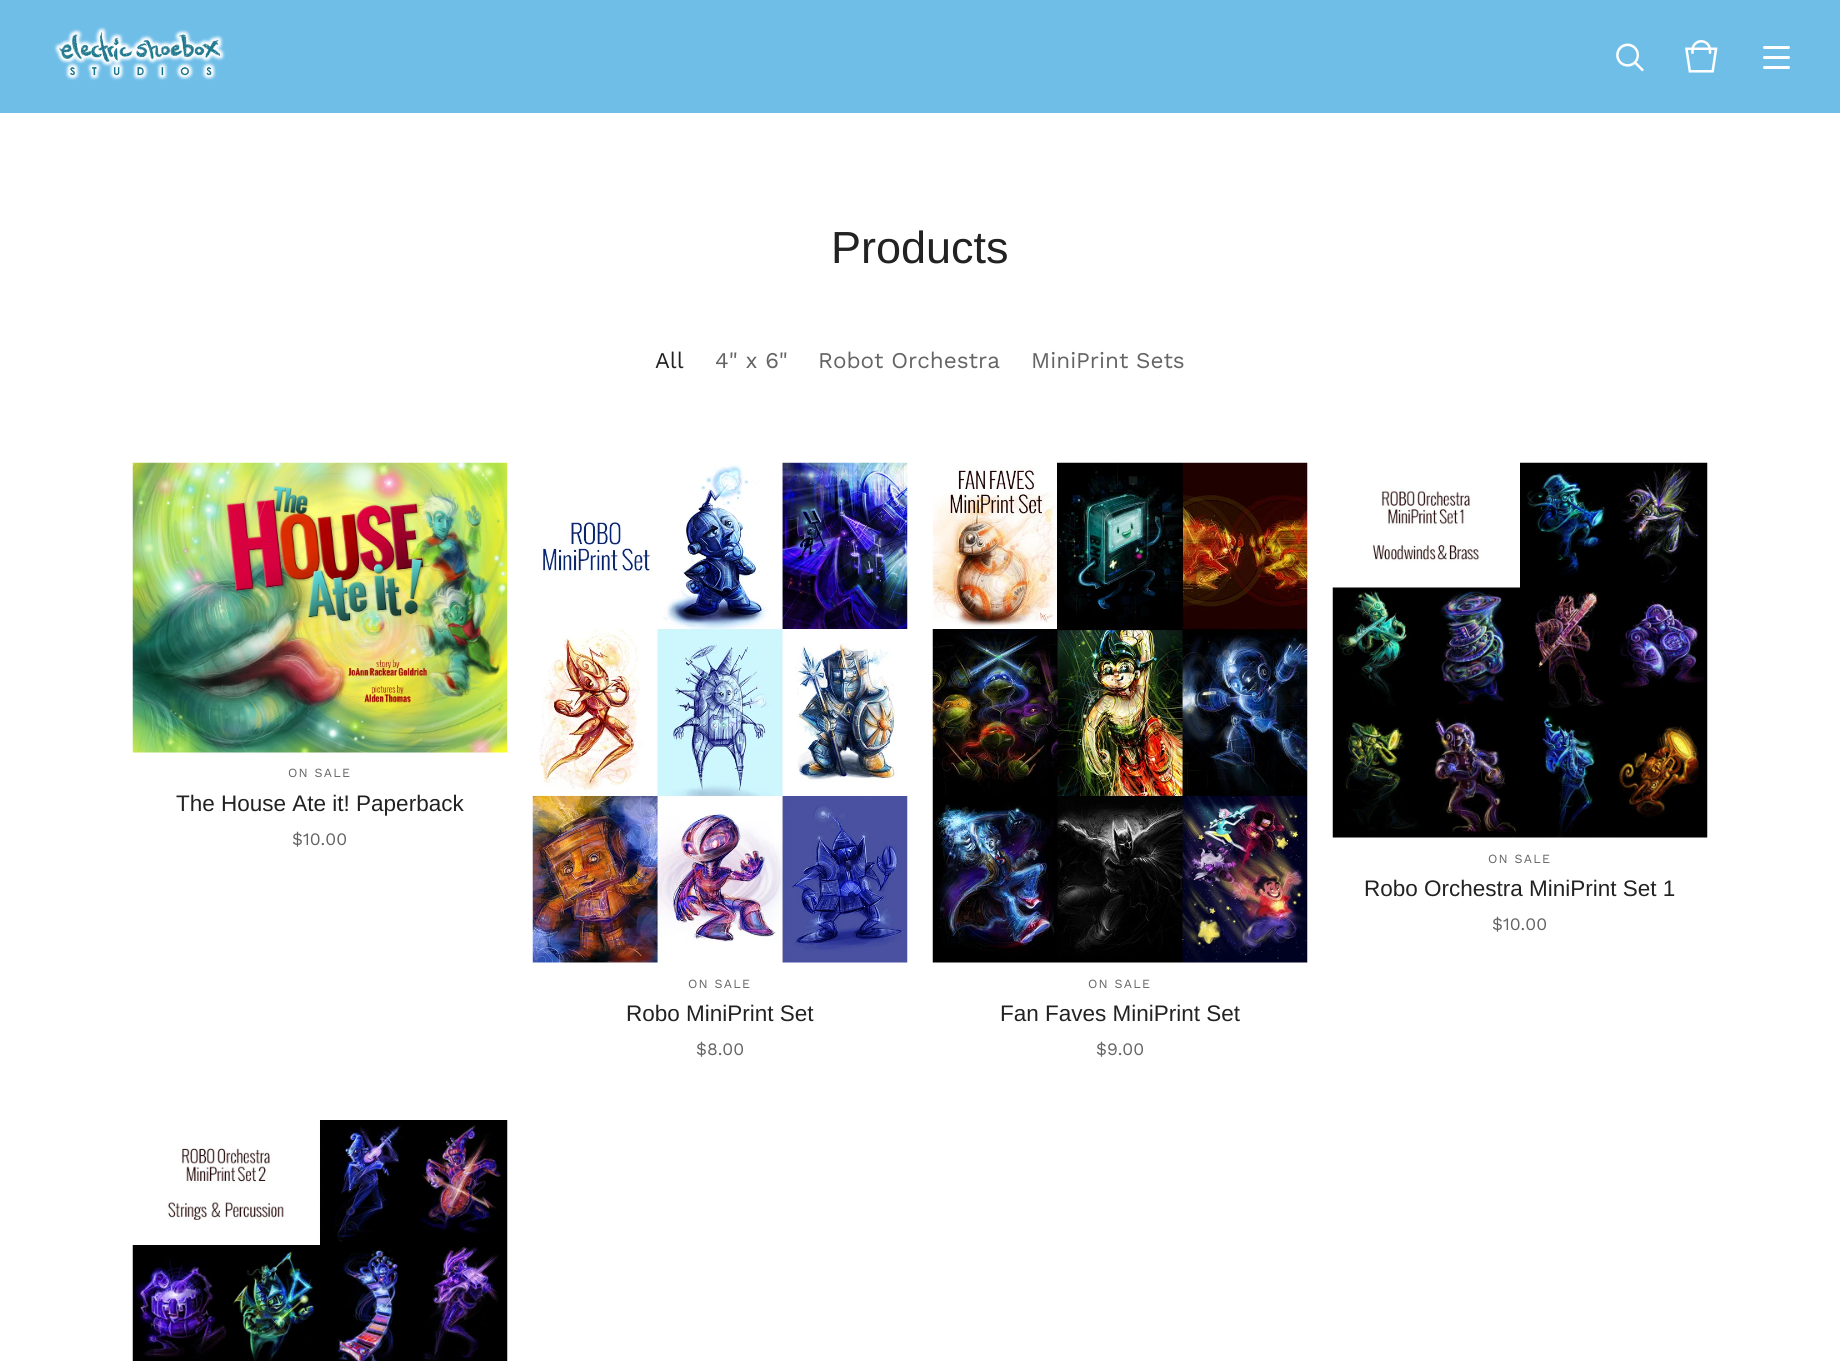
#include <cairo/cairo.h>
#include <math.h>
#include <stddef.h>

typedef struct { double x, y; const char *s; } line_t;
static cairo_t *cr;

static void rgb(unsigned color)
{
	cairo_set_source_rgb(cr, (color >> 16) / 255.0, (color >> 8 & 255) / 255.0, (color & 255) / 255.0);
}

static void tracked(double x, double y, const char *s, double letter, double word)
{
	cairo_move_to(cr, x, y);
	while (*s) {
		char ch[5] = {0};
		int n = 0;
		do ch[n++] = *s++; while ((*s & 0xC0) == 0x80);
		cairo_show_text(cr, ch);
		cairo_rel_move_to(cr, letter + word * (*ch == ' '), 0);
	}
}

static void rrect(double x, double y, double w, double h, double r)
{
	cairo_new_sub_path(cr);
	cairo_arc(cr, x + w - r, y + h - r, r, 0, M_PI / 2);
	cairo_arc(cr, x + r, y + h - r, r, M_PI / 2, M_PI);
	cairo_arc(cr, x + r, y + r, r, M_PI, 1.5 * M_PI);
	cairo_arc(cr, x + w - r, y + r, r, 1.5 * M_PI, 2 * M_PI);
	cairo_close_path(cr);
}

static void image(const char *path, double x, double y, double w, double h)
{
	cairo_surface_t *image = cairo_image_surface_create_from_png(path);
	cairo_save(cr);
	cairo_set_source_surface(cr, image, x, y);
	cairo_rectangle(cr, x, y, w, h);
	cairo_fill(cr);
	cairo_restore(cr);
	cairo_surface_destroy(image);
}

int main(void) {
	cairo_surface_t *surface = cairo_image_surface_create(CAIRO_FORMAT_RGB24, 1840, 1361);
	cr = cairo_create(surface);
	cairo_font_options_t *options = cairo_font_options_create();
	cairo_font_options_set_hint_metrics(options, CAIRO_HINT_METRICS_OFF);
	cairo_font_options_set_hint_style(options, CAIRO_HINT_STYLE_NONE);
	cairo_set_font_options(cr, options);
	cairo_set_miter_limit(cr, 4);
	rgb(0xffffff);
	cairo_paint(cr);
	rgb(0x6fbee8);
	cairo_rectangle(cr, 0, 0, 1840, 113);
	cairo_fill(cr);
	image("img/1.png", 54, 27, 172, 54);
	image("img/2.png", 1616, 43, 28, 29);
	image("img/3.png", 1685, 40, 33, 33);
	rgb(0xffffff);
	rrect(1763, 46, 27, 3, 1.5);
	cairo_fill(cr);
	rrect(1763, 56, 27, 3, 1.5);
	cairo_fill(cr);
	rrect(1763, 66, 27, 3, 1.5);
	cairo_fill(cr);
	image("img/4.png", 132, 462, 376, 291);
	image("img/5.png", 1332, 462, 376, 376);
	image("img/6.png", 532, 462, 376, 501);
	image("img/7.png", 932, 462, 376, 501);
	image("img/8.png", 132, 1120, 376, 241);
	cairo_select_font_face(cr, "Liberation Sans", CAIRO_FONT_SLANT_NORMAL, CAIRO_FONT_WEIGHT_NORMAL);
	cairo_set_font_size(cr, 45);
	rgb(0x222222);
	cairo_move_to(cr, 831, 263);
	cairo_show_text(cr, "Products");
	cairo_select_font_face(cr, "Work Sans", CAIRO_FONT_SLANT_NORMAL, CAIRO_FONT_WEIGHT_NORMAL);
	cairo_set_font_size(cr, 22.5);
	cairo_move_to(cr, 655, 368);
	cairo_show_text(cr, "All");
	rgb(0x646464);
	{
		static const line_t items[] = {
			{715, 368, "4\" x 6\""},
			{818, 368, "Robot Orchestra"},
			{1031, 368, "MiniPrint Sets"},
		};
		for (size_t i = 0; i < sizeof items / sizeof *items; i++) {
			cairo_move_to(cr, items[i].x, items[i].y);
			cairo_show_text(cr, items[i].s);
		}
	}
	cairo_set_font_size(cr, 12.5);
	tracked(288, 777, "ON SALE", 1.25, 0);
	cairo_select_font_face(cr, "Liberation Sans", CAIRO_FONT_SLANT_NORMAL, CAIRO_FONT_WEIGHT_NORMAL);
	cairo_set_font_size(cr, 22.5);
	rgb(0x222222);
	cairo_move_to(cr, 176, 811);
	cairo_show_text(cr, "The House Ate it! Paperback");
	cairo_select_font_face(cr, "Work Sans", CAIRO_FONT_SLANT_NORMAL, CAIRO_FONT_WEIGHT_NORMAL);
	cairo_set_font_size(cr, 17.5);
	rgb(0x646464);
	cairo_move_to(cr, 292, 845);
	cairo_show_text(cr, "$10.00");
	cairo_set_font_size(cr, 12.5);
	tracked(1488, 863, "ON SALE", 1.25, 0);
	cairo_select_font_face(cr, "Liberation Sans", CAIRO_FONT_SLANT_NORMAL, CAIRO_FONT_WEIGHT_NORMAL);
	cairo_set_font_size(cr, 22.5);
	rgb(0x222222);
	cairo_move_to(cr, 1364, 896);
	cairo_show_text(cr, "Robo Orchestra MiniPrint Set 1");
	cairo_select_font_face(cr, "Work Sans", CAIRO_FONT_SLANT_NORMAL, CAIRO_FONT_WEIGHT_NORMAL);
	cairo_set_font_size(cr, 17.5);
	rgb(0x646464);
	cairo_move_to(cr, 1492, 930);
	cairo_show_text(cr, "$10.00");
	cairo_set_font_size(cr, 12.5);
	tracked(688, 988, "ON SALE", 1.25, 0);
	cairo_select_font_face(cr, "Liberation Sans", CAIRO_FONT_SLANT_NORMAL, CAIRO_FONT_WEIGHT_NORMAL);
	cairo_set_font_size(cr, 22.5);
	rgb(0x222222);
	cairo_move_to(cr, 626, 1021);
	cairo_show_text(cr, "Robo MiniPrint Set");
	cairo_select_font_face(cr, "Work Sans", CAIRO_FONT_SLANT_NORMAL, CAIRO_FONT_WEIGHT_NORMAL);
	cairo_set_font_size(cr, 17.5);
	rgb(0x646464);
	cairo_move_to(cr, 696, 1055);
	cairo_show_text(cr, "$8.00");
	cairo_set_font_size(cr, 12.5);
	tracked(1088, 988, "ON SALE", 1.25, 0);
	cairo_select_font_face(cr, "Liberation Sans", CAIRO_FONT_SLANT_NORMAL, CAIRO_FONT_WEIGHT_NORMAL);
	cairo_set_font_size(cr, 22.5);
	rgb(0x222222);
	cairo_move_to(cr, 1000, 1021);
	cairo_show_text(cr, "Fan Faves MiniPrint Set");
	cairo_select_font_face(cr, "Work Sans", CAIRO_FONT_SLANT_NORMAL, CAIRO_FONT_WEIGHT_NORMAL);
	cairo_set_font_size(cr, 17.5);
	rgb(0x646464);
	cairo_move_to(cr, 1096, 1055);
	cairo_show_text(cr, "$9.00");
	cairo_surface_write_to_png(surface, "page.png");
	cairo_font_options_destroy(options);
	cairo_destroy(cr);
	cairo_surface_destroy(surface);
	return 0;
}
